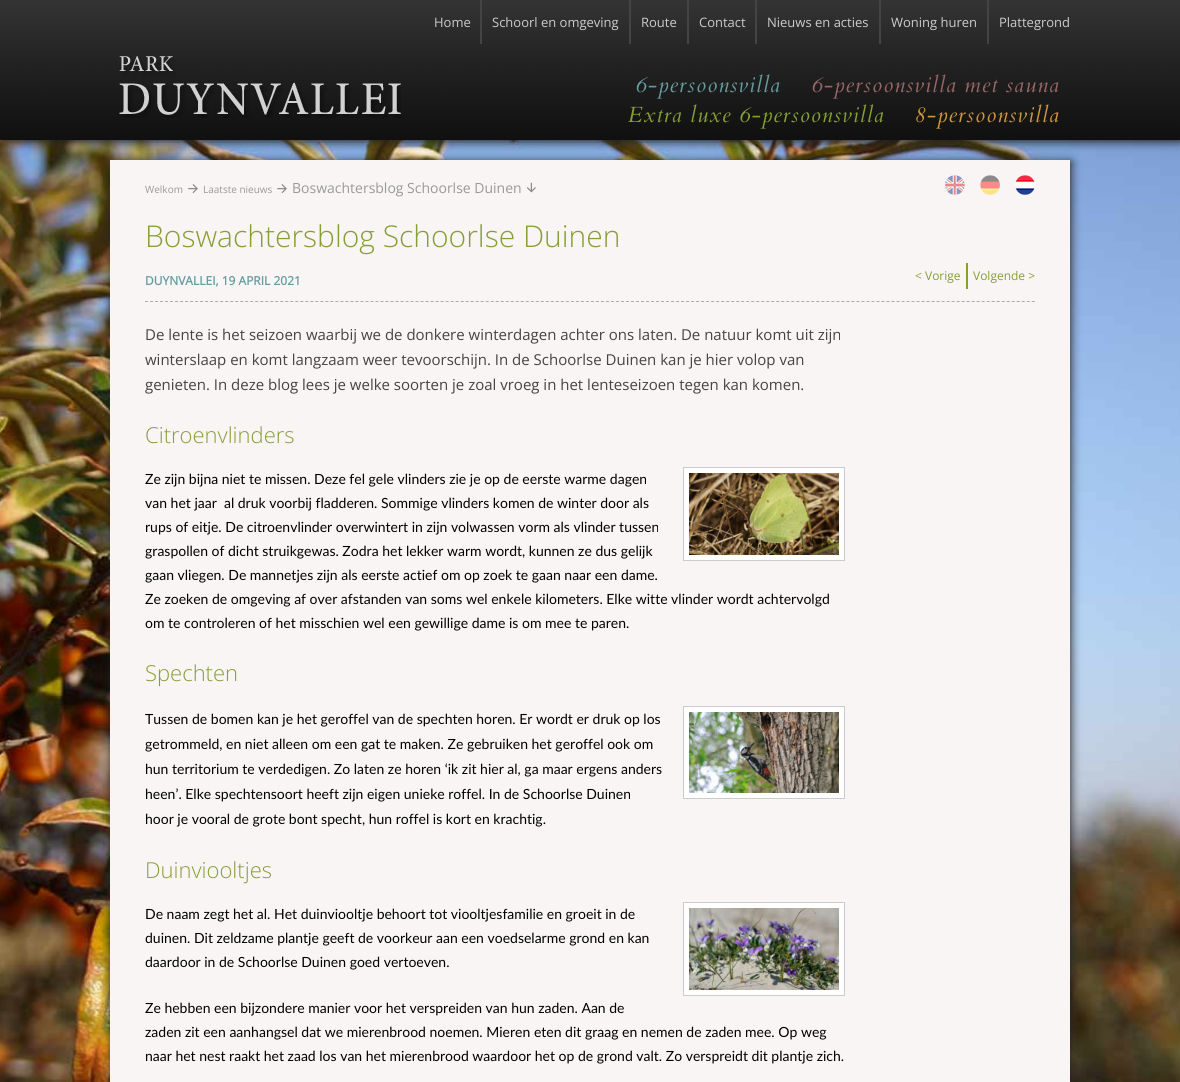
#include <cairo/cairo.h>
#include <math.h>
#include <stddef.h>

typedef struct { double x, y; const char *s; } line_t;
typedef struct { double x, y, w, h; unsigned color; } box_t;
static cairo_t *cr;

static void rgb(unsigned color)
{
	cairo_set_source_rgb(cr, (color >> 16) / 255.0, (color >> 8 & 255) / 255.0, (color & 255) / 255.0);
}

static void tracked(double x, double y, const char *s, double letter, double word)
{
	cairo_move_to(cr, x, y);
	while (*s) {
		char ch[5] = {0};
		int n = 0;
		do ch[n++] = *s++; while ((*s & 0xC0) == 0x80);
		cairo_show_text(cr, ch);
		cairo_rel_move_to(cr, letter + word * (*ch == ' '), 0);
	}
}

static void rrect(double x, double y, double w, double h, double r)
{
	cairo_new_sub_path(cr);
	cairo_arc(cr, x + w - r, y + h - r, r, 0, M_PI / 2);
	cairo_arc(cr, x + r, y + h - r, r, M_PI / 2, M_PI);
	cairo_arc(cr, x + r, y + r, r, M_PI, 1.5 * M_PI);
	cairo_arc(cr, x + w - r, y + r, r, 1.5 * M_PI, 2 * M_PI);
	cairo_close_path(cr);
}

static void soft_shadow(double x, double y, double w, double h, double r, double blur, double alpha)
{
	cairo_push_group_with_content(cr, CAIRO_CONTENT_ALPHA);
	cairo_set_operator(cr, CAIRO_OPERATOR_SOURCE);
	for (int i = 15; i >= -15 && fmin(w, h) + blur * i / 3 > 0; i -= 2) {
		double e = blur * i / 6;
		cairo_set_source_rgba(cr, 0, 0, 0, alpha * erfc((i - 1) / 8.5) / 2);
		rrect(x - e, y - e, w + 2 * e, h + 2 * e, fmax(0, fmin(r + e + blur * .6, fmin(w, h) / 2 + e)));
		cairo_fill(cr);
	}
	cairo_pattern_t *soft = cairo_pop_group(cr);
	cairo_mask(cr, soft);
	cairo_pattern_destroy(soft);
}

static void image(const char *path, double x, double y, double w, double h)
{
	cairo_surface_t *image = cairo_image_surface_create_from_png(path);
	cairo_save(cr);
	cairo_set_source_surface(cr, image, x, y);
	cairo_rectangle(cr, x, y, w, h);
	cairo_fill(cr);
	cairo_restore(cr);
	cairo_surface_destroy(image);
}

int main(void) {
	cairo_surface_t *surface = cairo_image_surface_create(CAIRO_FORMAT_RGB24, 1180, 1082);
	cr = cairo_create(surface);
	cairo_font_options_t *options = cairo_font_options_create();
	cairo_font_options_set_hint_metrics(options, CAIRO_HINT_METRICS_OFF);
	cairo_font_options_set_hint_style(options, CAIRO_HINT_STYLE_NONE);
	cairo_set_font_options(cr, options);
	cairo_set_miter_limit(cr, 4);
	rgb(0xffffff);
	cairo_paint(cr);
	image("img/1.png", 0, 140, 1180, 942);
	rgb(0x222222);
	soft_shadow(1, 2, 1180, 140, 0, 5, 1);
	image("img/2.png", 0, 0, 1180, 140);
	{
		static const box_t items[] = {
			{480, 0, 2, 44, 0x444444},
			{629, 0, 2, 44, 0x444444},
			{687, 0, 2, 44, 0x444444},
			{755, 0, 2, 44, 0x444444},
			{879, 0, 2, 44, 0x444444},
			{987, 0, 2, 44, 0x444444},
		};
		for (size_t i = 0; i < sizeof items / sizeof *items; i++) {
			rgb(items[i].color);
			cairo_rectangle(cr, items[i].x, items[i].y, items[i].w, items[i].h);
			cairo_fill(cr);
		}
	}
	image("img/3.png", 119, 56, 282, 62);
	rgb(0x222222);
	soft_shadow(111, 162, 960, 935, 0, 5, 1);
	rgb(0xf8f5f4);
	cairo_rectangle(cr, 110, 160, 960, 922);
	cairo_fill(cr);
	image("img/4.png", 188, 184, 10, 9);
	image("img/4.png", 277, 184, 10, 9);
	image("img/5.png", 526, 182, 10, 11);
	image("img/6.png", 945, 175, 20, 20);
	image("img/7.png", 980, 175, 20, 20);
	image("img/8.png", 1015, 175, 20, 20);
	rgb(0x879f36);
	cairo_rectangle(cr, 966, 263, 2, 26);
	cairo_fill(cr);
	cairo_new_path(cr);
	cairo_move_to(cr, 145, 301.5);
	cairo_line_to(cr, 1035, 301.5);
	rgb(0xaaaaaa);
	cairo_set_line_width(cr, 1);
	cairo_set_dash(cr, (double[]){3, 2.01}, 2, 0);
	cairo_stroke(cr);
	rgb(0xffffff);
	cairo_rectangle(cr, 683.5, 467.5, 161, 93);
	cairo_fill_preserve(cr);
	rgb(0xcccccc);
	cairo_set_dash(cr, NULL, 0, 0);
	cairo_stroke(cr);
	image("img/9.png", 689, 473, 150, 82);
	rgb(0xffffff);
	cairo_rectangle(cr, 683.5, 706.5, 161, 92);
	cairo_fill_preserve(cr);
	rgb(0xcccccc);
	cairo_stroke(cr);
	image("img/10.png", 689, 712, 150, 81);
	rgb(0xffffff);
	cairo_rectangle(cr, 683.5, 902.5, 161, 93);
	cairo_fill_preserve(cr);
	rgb(0xcccccc);
	cairo_stroke(cr);
	image("img/11.png", 689, 908, 150, 82);
	cairo_select_font_face(cr, "Open Sans", CAIRO_FONT_SLANT_NORMAL, CAIRO_FONT_WEIGHT_NORMAL);
	cairo_set_font_size(cr, 13);
	{
		static const line_t items[] = {
			{434, 27, "Home"},
			{492, 27, "Schoorl en omgeving"},
			{641, 27, "Route"},
			{699, 27, "Contact"},
			{767, 27, "Nieuws en acties"},
			{891, 27, "Woning huren"},
			{999, 27, "Plattegrond"},
		};
		for (size_t i = 0; i < sizeof items / sizeof *items; i++) {
			cairo_move_to(cr, items[i].x, items[i].y);
			cairo_show_text(cr, items[i].s);
		}
	}
	cairo_select_font_face(cr, "Cardo", CAIRO_FONT_SLANT_ITALIC, CAIRO_FONT_WEIGHT_NORMAL);
	cairo_set_font_size(cr, 22);
	rgb(0x679c9f);
	tracked(635, 92, "6-persoonsvilla", 1, 0);
	rgb(0x996666);
	tracked(811, 92, "6-persoonsvilla met sauna", 1, 0);
	rgb(0x879f36);
	tracked(628, 122, "Extra luxe 6-persoonsvilla", 1, 0);
	rgb(0xce963e);
	tracked(914, 122, "8-persoonsvilla", 1, 0);
	cairo_select_font_face(cr, "Open Sans", CAIRO_FONT_SLANT_NORMAL, CAIRO_FONT_WEIGHT_NORMAL);
	cairo_set_font_size(cr, 10);
	rgb(0x999999);
	cairo_move_to(cr, 145, 193);
	cairo_show_text(cr, "Welkom");
	cairo_move_to(cr, 203, 193);
	cairo_show_text(cr, "Laatste nieuws");
	cairo_set_font_size(cr, 14);
	cairo_move_to(cr, 292, 193);
	cairo_show_text(cr, "Boswachtersblog Schoorlse Duinen");
	cairo_select_font_face(cr, "Open Sans Light", CAIRO_FONT_SLANT_NORMAL, CAIRO_FONT_WEIGHT_NORMAL);
	cairo_set_font_size(cr, 30);
	rgb(0x879f36);
	cairo_move_to(cr, 145, 247);
	cairo_show_text(cr, "Boswachtersblog Schoorlse Duinen");
	cairo_select_font_face(cr, "Open Sans", CAIRO_FONT_SLANT_NORMAL, CAIRO_FONT_WEIGHT_BOLD);
	cairo_set_font_size(cr, 12);
	rgb(0x679c9f);
	cairo_move_to(cr, 145, 285);
	cairo_show_text(cr, "DUYNVALLEI, 19 APRIL 2021");
	cairo_select_font_face(cr, "Open Sans", CAIRO_FONT_SLANT_NORMAL, CAIRO_FONT_WEIGHT_NORMAL);
	rgb(0x879f36);
	cairo_move_to(cr, 915, 280);
	cairo_show_text(cr, "< Vorige");
	cairo_move_to(cr, 973, 280);
	cairo_show_text(cr, "Volgende >");
	cairo_set_font_size(cr, 15);
	rgb(0x444444);
	{
		static const line_t items[] = {
			{145, 340, "De lente is het seizoen waarbij we de donkere winterdagen achter ons laten. De natuur komt uit zijn"},
			{145, 365, "winterslaap en komt langzaam weer tevoorschijn. In de Schoorlse Duinen kan je hier volop van"},
			{145, 390, "genieten. In deze blog lees je welke soorten je zoal vroeg in het lenteseizoen tegen kan komen."},
		};
		for (size_t i = 0; i < sizeof items / sizeof *items; i++) {
			cairo_move_to(cr, items[i].x, items[i].y);
			cairo_show_text(cr, items[i].s);
		}
	}
	cairo_select_font_face(cr, "Open Sans Light", CAIRO_FONT_SLANT_NORMAL, CAIRO_FONT_WEIGHT_NORMAL);
	cairo_set_font_size(cr, 22);
	rgb(0x879f36);
	cairo_move_to(cr, 145, 443);
	cairo_show_text(cr, "Citroenvlinders");
	cairo_select_font_face(cr, "Lato", CAIRO_FONT_SLANT_NORMAL, CAIRO_FONT_WEIGHT_NORMAL);
	cairo_set_font_size(cr, 14);
	rgb(0x000000);
	{
		static const line_t items[] = {
			{145, 484, "Ze zijn bijna niet te missen. Deze fel gele vlinders zie je op de eerste warme dagen"},
			{145, 508, "van het jaar  al druk voorbij fladderen. Sommige vlinders komen de winter door als"},
			{145, 532, "rups of eitje. De citroenvlinder overwintert in zijn volwassen vorm als vlinder tussen"},
			{145, 556, "graspollen of dicht struikgewas. Zodra het lekker warm wordt, kunnen ze dus gelijk"},
			{145, 580, "gaan vliegen. De mannetjes zijn als eerste actief om op zoek te gaan naar een dame."},
			{145, 604, "Ze zoeken de omgeving af over afstanden van soms wel enkele kilometers. Elke witte vlinder wordt achtervolgd"},
			{145, 628, "om te controleren of het misschien wel een gewillige dame is om mee te paren."},
		};
		for (size_t i = 0; i < sizeof items / sizeof *items; i++) {
			cairo_move_to(cr, items[i].x, items[i].y);
			cairo_show_text(cr, items[i].s);
		}
	}
	cairo_select_font_face(cr, "Open Sans Light", CAIRO_FONT_SLANT_NORMAL, CAIRO_FONT_WEIGHT_NORMAL);
	cairo_set_font_size(cr, 22);
	rgb(0x879f36);
	cairo_move_to(cr, 145, 681);
	cairo_show_text(cr, "Spechten");
	cairo_select_font_face(cr, "Lato", CAIRO_FONT_SLANT_NORMAL, CAIRO_FONT_WEIGHT_NORMAL);
	cairo_set_font_size(cr, 14);
	rgb(0x000000);
	{
		static const line_t items[] = {
			{145, 724, "Tussen de bomen kan je het geroffel van de spechten horen. Er wordt er druk op los"},
			{145, 749, "getrommeld, en niet alleen om een gat te maken. Ze gebruiken het geroffel ook om"},
			{145, 774, "hun territorium te verdedigen. Zo laten ze horen ‘ik zit hier al, ga maar ergens anders"},
			{145, 799, "heen’. Elke spechtensoort heeft zijn eigen unieke roffel. In de Schoorlse Duinen"},
			{145, 824, "hoor je vooral de grote bont specht, hun roffel is kort en krachtig."},
		};
		for (size_t i = 0; i < sizeof items / sizeof *items; i++) {
			cairo_move_to(cr, items[i].x, items[i].y);
			cairo_show_text(cr, items[i].s);
		}
	}
	cairo_select_font_face(cr, "Open Sans Light", CAIRO_FONT_SLANT_NORMAL, CAIRO_FONT_WEIGHT_NORMAL);
	cairo_set_font_size(cr, 22);
	rgb(0x879f36);
	cairo_move_to(cr, 145, 878);
	cairo_show_text(cr, "Duinviooltjes");
	cairo_select_font_face(cr, "Lato", CAIRO_FONT_SLANT_NORMAL, CAIRO_FONT_WEIGHT_NORMAL);
	cairo_set_font_size(cr, 14);
	rgb(0x000000);
	{
		static const line_t items[] = {
			{145, 919, "De naam zegt het al. Het duinviooltje behoort tot viooltjesfamilie en groeit in de"},
			{145, 943, "duinen. Dit zeldzame plantje geeft de voorkeur aan een voedselarme grond en kan"},
			{145, 967, "daardoor in de Schoorlse Duinen goed vertoeven."},
			{145, 1013, "Ze hebben een bijzondere manier voor het verspreiden van hun zaden. Aan de"},
			{145, 1037, "zaden zit een aanhangsel dat we mierenbrood noemen. Mieren eten dit graag en nemen de zaden mee. Op weg"},
			{145, 1061, "naar het nest raakt het zaad los van het mierenbrood waardoor het op de grond valt. Zo verspreidt dit plantje zich."},
		};
		for (size_t i = 0; i < sizeof items / sizeof *items; i++) {
			cairo_move_to(cr, items[i].x, items[i].y);
			cairo_show_text(cr, items[i].s);
		}
	}
	cairo_surface_write_to_png(surface, "page.png");
	cairo_font_options_destroy(options);
	cairo_destroy(cr);
	cairo_surface_destroy(surface);
	return 0;
}
